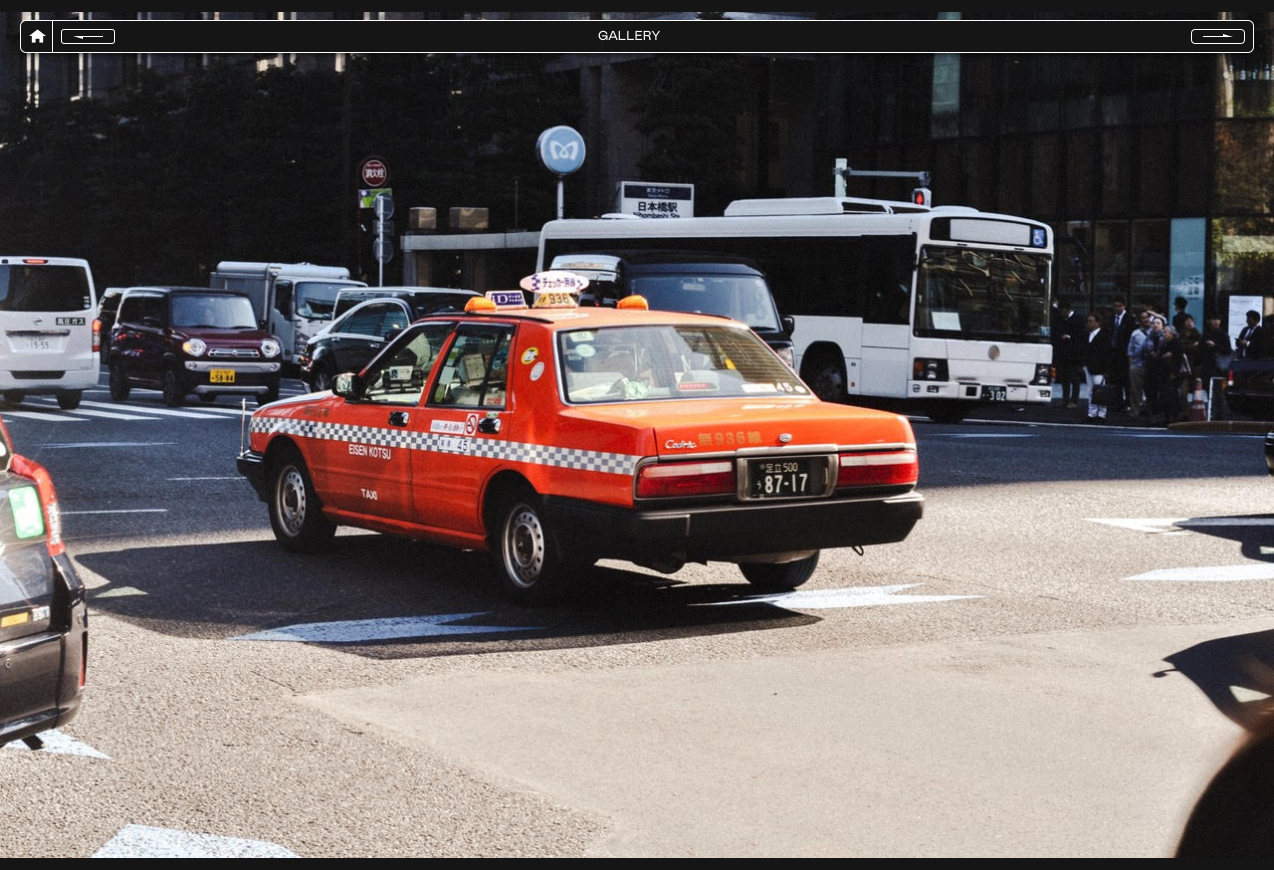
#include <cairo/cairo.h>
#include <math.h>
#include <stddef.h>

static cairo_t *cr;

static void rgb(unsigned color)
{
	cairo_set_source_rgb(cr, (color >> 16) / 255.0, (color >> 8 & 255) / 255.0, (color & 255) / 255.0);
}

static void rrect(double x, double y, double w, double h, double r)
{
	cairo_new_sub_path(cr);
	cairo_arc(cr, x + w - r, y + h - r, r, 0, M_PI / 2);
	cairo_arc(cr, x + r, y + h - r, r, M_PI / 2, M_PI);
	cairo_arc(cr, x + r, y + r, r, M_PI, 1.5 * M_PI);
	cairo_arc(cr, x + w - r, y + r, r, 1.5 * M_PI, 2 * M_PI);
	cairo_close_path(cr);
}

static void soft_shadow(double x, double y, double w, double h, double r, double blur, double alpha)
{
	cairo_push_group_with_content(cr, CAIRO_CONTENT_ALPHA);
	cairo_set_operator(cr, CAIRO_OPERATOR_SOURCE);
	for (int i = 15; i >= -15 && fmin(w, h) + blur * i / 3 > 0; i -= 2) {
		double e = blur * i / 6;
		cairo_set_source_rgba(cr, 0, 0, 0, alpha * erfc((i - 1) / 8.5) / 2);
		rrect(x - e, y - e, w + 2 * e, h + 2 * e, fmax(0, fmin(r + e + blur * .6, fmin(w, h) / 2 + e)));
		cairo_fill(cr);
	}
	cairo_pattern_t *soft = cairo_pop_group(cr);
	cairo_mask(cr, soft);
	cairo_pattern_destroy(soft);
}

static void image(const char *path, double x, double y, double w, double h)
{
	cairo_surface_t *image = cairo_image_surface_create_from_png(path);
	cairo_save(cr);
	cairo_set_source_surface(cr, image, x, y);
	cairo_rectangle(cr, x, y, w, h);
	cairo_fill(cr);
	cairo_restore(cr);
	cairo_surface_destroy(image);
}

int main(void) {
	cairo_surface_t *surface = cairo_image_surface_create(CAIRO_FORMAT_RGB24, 1274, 870);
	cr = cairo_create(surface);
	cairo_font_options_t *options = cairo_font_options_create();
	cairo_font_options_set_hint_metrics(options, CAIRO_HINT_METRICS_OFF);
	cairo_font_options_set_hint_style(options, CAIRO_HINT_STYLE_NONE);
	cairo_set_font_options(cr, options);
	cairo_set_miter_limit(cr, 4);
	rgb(0x151515);
	cairo_paint(cr);
	image("img/1.png", 0, 12, 1274, 846);
	rgb(0x000000);
	soft_shadow(22, 26, 1230, 29, 4, 3, 0.66);
	rgb(0x151515);
	rrect(20.5, 20.5, 1233, 32, 5.5);
	cairo_fill_preserve(cr);
	rgb(0xfefefe);
	cairo_set_line_width(cr, 1);
	cairo_stroke(cr);
	cairo_rectangle(cr, 52, 21, 1, 31);
	cairo_fill(cr);
	image("img/2.png", 29, 29, 17, 14);
	rrect(61.5, 29.5, 53, 14, 2.5);
	cairo_stroke(cr);
	cairo_rectangle(cr, 83, 36, 20, 1);
	cairo_fill(cr);
	cairo_new_path(cr);
	cairo_move_to(cr, 73, 36);
	cairo_line_to(cr, 83, 36);
	cairo_line_to(cr, 83, 39);
	cairo_close_path(cr);
	cairo_fill(cr);
	rrect(1191.5, 29.5, 53, 14, 3.5);
	cairo_stroke(cr);
	cairo_rectangle(cr, 1203, 36, 20, 1);
	cairo_fill(cr);
	cairo_set_fill_rule(cr, CAIRO_FILL_RULE_EVEN_ODD);
	cairo_new_path(cr);
	cairo_move_to(cr, 1233, 37);
	cairo_line_to(cr, 1223, 34);
	cairo_line_to(cr, 1223, 37);
	cairo_close_path(cr);
	cairo_fill(cr);
	cairo_select_font_face(cr, "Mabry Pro", CAIRO_FONT_SLANT_NORMAL, CAIRO_FONT_WEIGHT_NORMAL);
	cairo_set_font_size(cr, 13);
	cairo_move_to(cr, 598, 40);
	cairo_show_text(cr, "GALLERY");
	cairo_surface_write_to_png(surface, "page.png");
	cairo_font_options_destroy(options);
	cairo_destroy(cr);
	cairo_surface_destroy(surface);
	return 0;
}
